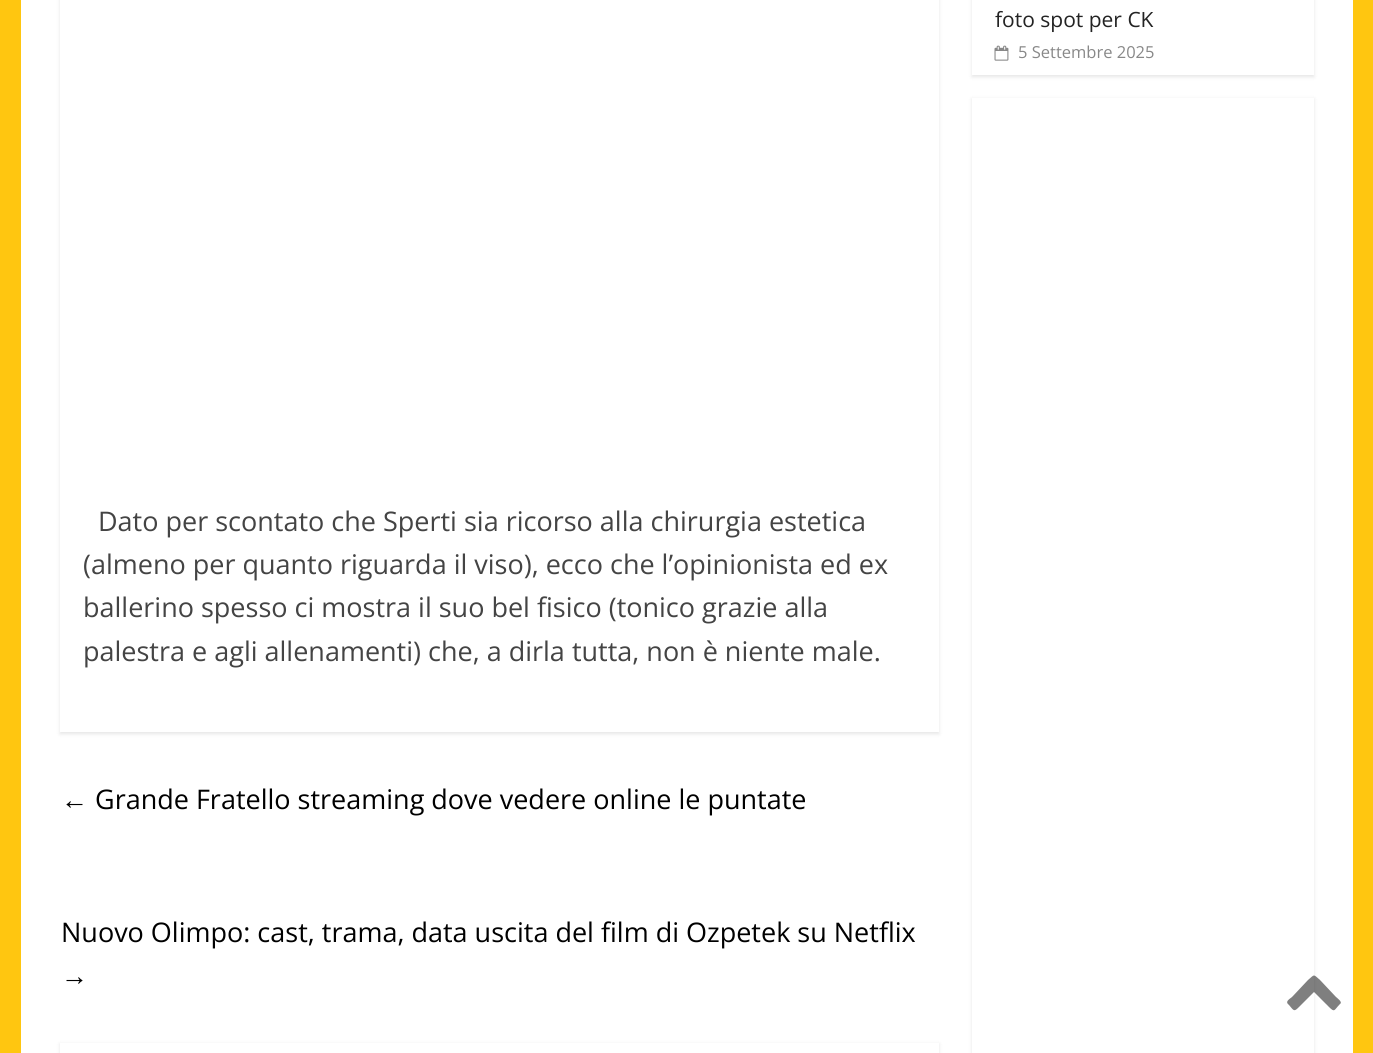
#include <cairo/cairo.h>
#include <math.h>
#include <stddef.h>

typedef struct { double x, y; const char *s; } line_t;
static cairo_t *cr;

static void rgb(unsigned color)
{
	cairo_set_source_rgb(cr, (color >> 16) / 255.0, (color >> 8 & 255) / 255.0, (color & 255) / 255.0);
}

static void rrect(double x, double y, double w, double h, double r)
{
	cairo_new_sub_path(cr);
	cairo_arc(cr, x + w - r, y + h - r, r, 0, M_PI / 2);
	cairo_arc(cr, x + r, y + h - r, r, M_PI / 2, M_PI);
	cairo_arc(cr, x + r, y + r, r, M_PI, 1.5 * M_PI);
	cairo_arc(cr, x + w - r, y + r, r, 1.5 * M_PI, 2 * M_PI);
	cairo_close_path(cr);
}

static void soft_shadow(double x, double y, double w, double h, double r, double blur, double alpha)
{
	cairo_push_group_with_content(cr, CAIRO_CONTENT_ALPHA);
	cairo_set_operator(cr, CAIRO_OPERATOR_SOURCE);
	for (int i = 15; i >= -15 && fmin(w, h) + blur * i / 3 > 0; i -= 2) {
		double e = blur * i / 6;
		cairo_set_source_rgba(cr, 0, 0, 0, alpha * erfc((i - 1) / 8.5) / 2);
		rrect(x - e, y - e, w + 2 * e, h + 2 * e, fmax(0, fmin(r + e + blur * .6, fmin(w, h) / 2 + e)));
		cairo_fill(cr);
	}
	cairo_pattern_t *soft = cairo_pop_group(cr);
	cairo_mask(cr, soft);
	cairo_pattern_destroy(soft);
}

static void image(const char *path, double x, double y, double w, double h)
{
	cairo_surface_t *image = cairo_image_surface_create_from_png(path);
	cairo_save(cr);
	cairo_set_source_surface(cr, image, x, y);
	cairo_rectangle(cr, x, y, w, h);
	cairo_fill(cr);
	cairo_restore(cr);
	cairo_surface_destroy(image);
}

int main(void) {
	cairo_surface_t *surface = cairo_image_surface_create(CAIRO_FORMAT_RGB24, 1373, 1053);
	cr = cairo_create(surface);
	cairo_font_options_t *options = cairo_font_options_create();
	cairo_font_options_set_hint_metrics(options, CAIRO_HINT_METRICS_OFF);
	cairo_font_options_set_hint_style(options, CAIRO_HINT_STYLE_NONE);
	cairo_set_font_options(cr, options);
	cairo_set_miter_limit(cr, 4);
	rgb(0xffc610);
	cairo_paint(cr);
	rgb(0xffffff);
	cairo_rectangle(cr, 21, 0, 1332, 1053);
	cairo_fill(cr);
	cairo_save(cr);
	cairo_set_fill_rule(cr, CAIRO_FILL_RULE_EVEN_ODD);
	cairo_new_path(cr);
	cairo_move_to(cr, 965, 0);
	cairo_line_to(cr, 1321, 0);
	cairo_line_to(cr, 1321, 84);
	cairo_line_to(cr, 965, 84);
	cairo_close_path(cr);
	cairo_move_to(cr, 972, -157);
	cairo_line_to(cr, 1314, -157);
	cairo_line_to(cr, 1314, 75);
	cairo_line_to(cr, 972, 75);
	cairo_close_path(cr);
	cairo_clip(cr);
	rgb(0x000000);
	soft_shadow(972, -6, 342, 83, 0, 2, 0.1);
	cairo_restore(cr);
	image("img/1.png", 994, 45, 15, 16);
	cairo_save(cr);
	cairo_set_fill_rule(cr, CAIRO_FILL_RULE_EVEN_ODD);
	cairo_new_path(cr);
	cairo_move_to(cr, 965, 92);
	cairo_line_to(cr, 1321, 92);
	cairo_line_to(cr, 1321, 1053);
	cairo_line_to(cr, 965, 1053);
	cairo_close_path(cr);
	cairo_move_to(cr, 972, 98);
	cairo_line_to(cr, 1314, 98);
	cairo_line_to(cr, 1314, 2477);
	cairo_line_to(cr, 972, 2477);
	cairo_close_path(cr);
	cairo_clip(cr);
	rgb(0x000000);
	soft_shadow(972, 99, 342, 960, 0, 2, 0.1);
	cairo_restore(cr);
	cairo_save(cr);
	cairo_set_fill_rule(cr, CAIRO_FILL_RULE_EVEN_ODD);
	cairo_new_path(cr);
	cairo_move_to(cr, 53, 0);
	cairo_line_to(cr, 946, 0);
	cairo_line_to(cr, 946, 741);
	cairo_line_to(cr, 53, 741);
	cairo_close_path(cr);
	cairo_move_to(cr, 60, -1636);
	cairo_line_to(cr, 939, -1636);
	cairo_line_to(cr, 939, 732);
	cairo_line_to(cr, 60, 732);
	cairo_close_path(cr);
	cairo_clip(cr);
	rgb(0x000000);
	soft_shadow(60, -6, 879, 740, 0, 2, 0.1);
	cairo_restore(cr);
	cairo_save(cr);
	cairo_set_fill_rule(cr, CAIRO_FILL_RULE_EVEN_ODD);
	cairo_new_path(cr);
	cairo_move_to(cr, 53, 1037);
	cairo_line_to(cr, 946, 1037);
	cairo_line_to(cr, 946, 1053);
	cairo_line_to(cr, 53, 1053);
	cairo_close_path(cr);
	cairo_move_to(cr, 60, 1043);
	cairo_line_to(cr, 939, 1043);
	cairo_line_to(cr, 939, 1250);
	cairo_line_to(cr, 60, 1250);
	cairo_close_path(cr);
	cairo_clip(cr);
	rgb(0x000000);
	soft_shadow(60, 1044, 879, 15, 0, 2, 0.1);
	cairo_restore(cr);
	cairo_set_source_rgba(cr, 0, 0, 0, 0.5);
	cairo_new_path(cr);
	cairo_move_to(cr, 1340, 1004);
	cairo_curve_to(cr, 1334, 1010, 1335, 1013, 1329, 1007);
	cairo_line_to(cr, 1314, 992);
	cairo_line_to(cr, 1299, 1007);
	cairo_curve_to(cr, 1294, 1012, 1294, 1011, 1289, 1005);
	cairo_curve_to(cr, 1285, 1002, 1288, 1000, 1292, 997);
	cairo_line_to(cr, 1308, 980);
	cairo_curve_to(cr, 1315, 974, 1313, 974, 1320, 980);
	cairo_line_to(cr, 1336, 997);
	cairo_curve_to(cr, 1337, 998, 1343, 1002, 1340, 1004);
	cairo_close_path(cr);
	cairo_fill(cr);
	cairo_select_font_face(cr, "Open Sans", CAIRO_FONT_SLANT_NORMAL, CAIRO_FONT_WEIGHT_NORMAL);
	cairo_set_font_size(cr, 21);
	rgb(0x232323);
	cairo_move_to(cr, 995, 27);
	cairo_show_text(cr, "foto spot per CK");
	cairo_set_font_size(cr, 16.5);
	rgb(0x888888);
	cairo_move_to(cr, 1018, 58);
	cairo_show_text(cr, "5 Settembre 2025");
	cairo_set_font_size(cr, 27);
	rgb(0x444444);
	{
		static const line_t items[] = {
			{98, 531, "Dato per scontato che Sperti sia ricorso alla chirurgia estetica"},
			{83, 574, "(almeno per quanto riguarda il viso), ecco che l’opinionista ed ex"},
			{83, 617, "ballerino spesso ci mostra il suo bel fisico (tonico grazie alla"},
			{83, 661, "palestra e agli allenamenti) che, a dirla tutta, non è niente male."},
		};
		for (size_t i = 0; i < sizeof items / sizeof *items; i++) {
			cairo_move_to(cr, items[i].x, items[i].y);
			cairo_show_text(cr, items[i].s);
		}
	}
	cairo_select_font_face(cr, "Liberation Serif", CAIRO_FONT_SLANT_NORMAL, CAIRO_FONT_WEIGHT_NORMAL);
	rgb(0x000000);
	cairo_move_to(cr, 61, 809);
	cairo_show_text(cr, "←");
	cairo_select_font_face(cr, "Open Sans", CAIRO_FONT_SLANT_NORMAL, CAIRO_FONT_WEIGHT_NORMAL);
	cairo_move_to(cr, 95, 809);
	cairo_show_text(cr, "Grande Fratello streaming dove vedere online le puntate");
	cairo_move_to(cr, 61, 942);
	cairo_show_text(cr, "Nuovo Olimpo: cast, trama, data uscita del film di Ozpetek su Netflix");
	cairo_select_font_face(cr, "Liberation Serif", CAIRO_FONT_SLANT_NORMAL, CAIRO_FONT_WEIGHT_NORMAL);
	cairo_move_to(cr, 61, 985);
	cairo_show_text(cr, "→");
	cairo_surface_write_to_png(surface, "page.png");
	cairo_font_options_destroy(options);
	cairo_destroy(cr);
	cairo_surface_destroy(surface);
	return 0;
}
